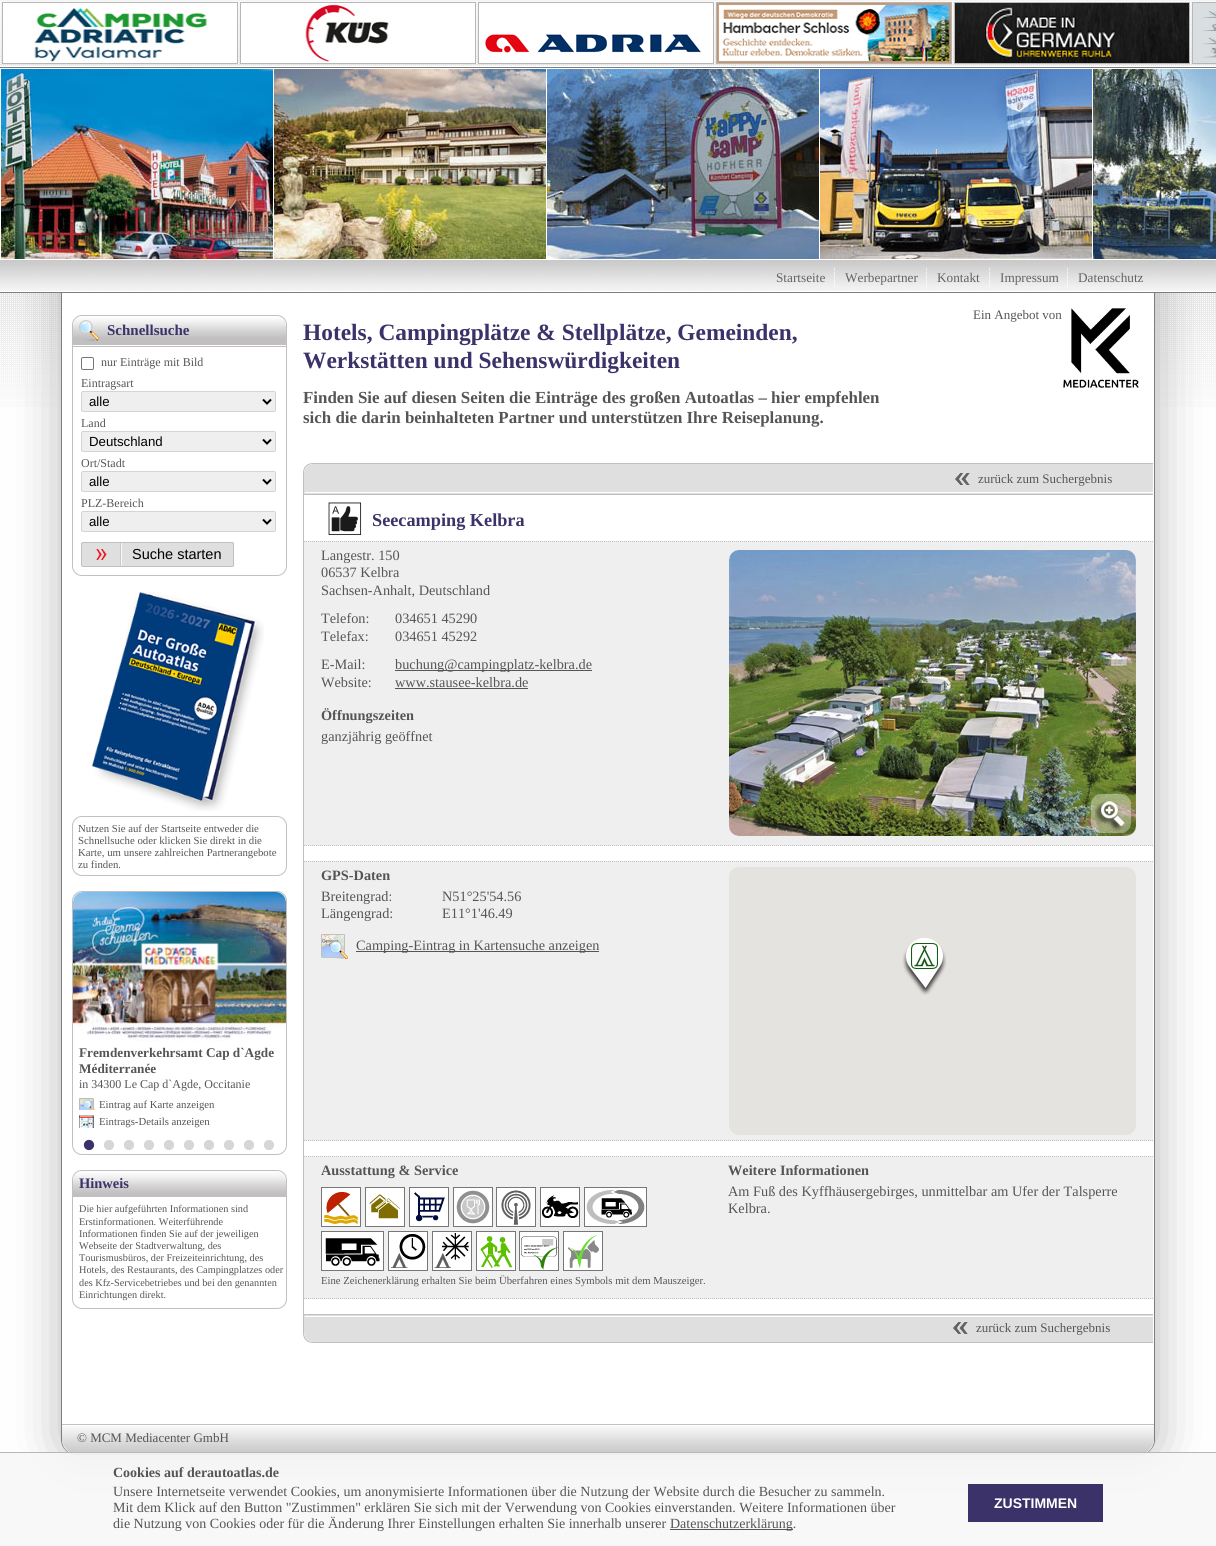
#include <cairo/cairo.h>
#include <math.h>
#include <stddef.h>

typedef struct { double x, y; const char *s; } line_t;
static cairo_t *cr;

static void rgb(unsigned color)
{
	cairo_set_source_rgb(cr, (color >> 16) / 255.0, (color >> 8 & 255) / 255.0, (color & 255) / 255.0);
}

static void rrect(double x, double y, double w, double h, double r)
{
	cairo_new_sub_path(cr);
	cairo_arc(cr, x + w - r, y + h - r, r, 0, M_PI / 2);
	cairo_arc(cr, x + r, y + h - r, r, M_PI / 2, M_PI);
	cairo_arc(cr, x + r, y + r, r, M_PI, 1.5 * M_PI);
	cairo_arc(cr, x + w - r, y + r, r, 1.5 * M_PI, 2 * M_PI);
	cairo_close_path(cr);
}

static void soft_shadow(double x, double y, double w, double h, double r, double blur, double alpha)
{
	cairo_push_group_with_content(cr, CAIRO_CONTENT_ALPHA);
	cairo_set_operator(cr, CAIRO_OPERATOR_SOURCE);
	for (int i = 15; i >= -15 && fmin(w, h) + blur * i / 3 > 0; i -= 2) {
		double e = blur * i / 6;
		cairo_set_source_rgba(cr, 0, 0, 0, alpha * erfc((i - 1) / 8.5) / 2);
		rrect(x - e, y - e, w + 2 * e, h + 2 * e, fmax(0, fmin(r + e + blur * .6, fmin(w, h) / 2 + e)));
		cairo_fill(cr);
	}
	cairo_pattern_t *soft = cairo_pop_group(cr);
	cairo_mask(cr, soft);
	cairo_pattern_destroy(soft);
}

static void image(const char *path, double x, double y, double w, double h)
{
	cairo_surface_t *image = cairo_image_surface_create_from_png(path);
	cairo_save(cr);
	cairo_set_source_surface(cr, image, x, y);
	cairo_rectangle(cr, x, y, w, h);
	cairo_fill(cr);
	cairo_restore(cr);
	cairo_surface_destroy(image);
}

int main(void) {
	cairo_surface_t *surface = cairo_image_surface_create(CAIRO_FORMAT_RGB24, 1216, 1546);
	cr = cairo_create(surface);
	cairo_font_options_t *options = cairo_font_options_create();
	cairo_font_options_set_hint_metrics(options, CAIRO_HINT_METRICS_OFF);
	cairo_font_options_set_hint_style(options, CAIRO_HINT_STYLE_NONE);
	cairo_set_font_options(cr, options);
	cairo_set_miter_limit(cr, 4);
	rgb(0xffffff);
	cairo_paint(cr);
	image("img/1.png", 0, 293, 1216, 114);
	rgb(0xb6b5b5);
	soft_shadow(62, 1, 1094, 1455, 15, 25, 1);
	rgb(0xffffff);
	cairo_new_path(cr);
	cairo_move_to(cr, 61, 0);
	cairo_line_to(cr, 1155, 0);
	cairo_line_to(cr, 1155, 1440);
	cairo_curve_to(cr, 1155, 1448.5, 1148.5, 1455, 1140, 1455);
	cairo_line_to(cr, 76, 1455);
	cairo_curve_to(cr, 67.5, 1455, 61, 1448.5, 61, 1440);
	cairo_close_path(cr);
	cairo_fill(cr);
	rgb(0x7e7d7d);
	cairo_set_fill_rule(cr, CAIRO_FILL_RULE_EVEN_ODD);
	cairo_new_path(cr);
	cairo_move_to(cr, 61, 0);
	cairo_line_to(cr, 1155, 0);
	cairo_line_to(cr, 1155, 1440);
	cairo_curve_to(cr, 1155, 1448, 1148, 1455, 1140, 1455);
	cairo_line_to(cr, 76, 1455);
	cairo_curve_to(cr, 68, 1455, 61, 1448, 61, 1440);
	cairo_close_path(cr);
	cairo_move_to(cr, 62, 0);
	cairo_line_to(cr, 1154, 0);
	cairo_line_to(cr, 1154, 1440);
	cairo_curve_to(cr, 1154, 1448, 1148, 1454, 1140, 1454);
	cairo_line_to(cr, 76, 1454);
	cairo_curve_to(cr, 68, 1454, 62, 1448, 62, 1440);
	cairo_close_path(cr);
	cairo_fill(cr);
	rgb(0xffffff);
	cairo_rectangle(cr, 17, 66, 1184, 1);
	cairo_fill(cr);
	image("img/2.png", 0, 0, 1216, 66);
	rgb(0x7e7d7d);
	cairo_rectangle(cr, 0, 67, 1216, 1);
	cairo_fill(cr);
	cairo_rectangle(cr, 2.5, 2.5, 235, 61);
	rgb(0xb8b7b7);
	cairo_set_line_width(cr, 1);
	cairo_stroke(cr);
	image("img/3.png", 3, 3, 234, 60);
	cairo_rectangle(cr, 240.5, 2.5, 235, 61);
	cairo_stroke(cr);
	image("img/4.png", 241, 3, 234, 60);
	cairo_rectangle(cr, 478.5, 2.5, 235, 61);
	cairo_stroke(cr);
	image("img/5.png", 479, 3, 234, 60);
	cairo_rectangle(cr, 716.5, 2.5, 235, 61);
	cairo_stroke(cr);
	image("img/6.png", 717, 3, 234, 60);
	cairo_rectangle(cr, 954.5, 2.5, 235, 61);
	cairo_stroke(cr);
	image("img/7.png", 955, 3, 234, 60);
	cairo_rectangle(cr, 1192.5, 2.5, 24, 61);
	cairo_stroke(cr);
	image("img/8.png", 1193, 3, 23, 60);
	rgb(0xffffff);
	cairo_rectangle(cr, 17, 68, 1184, 192);
	cairo_fill(cr);
	image("img/9.png", 1, 69, 272, 190);
	image("img/10.png", 274, 69, 272, 190);
	image("img/11.png", 547, 69, 272, 190);
	image("img/12.png", 820, 69, 272, 190);
	image("img/13.png", 1093, 69, 123, 190);
	cairo_rectangle(cr, 17, 291, 1184, 1);
	cairo_fill(cr);
	image("img/14.png", 0, 260, 1216, 31);
	rgb(0x7e7d7d);
	cairo_rectangle(cr, 0, 292, 1216, 1);
	cairo_fill(cr);
	cairo_new_path(cr);
	cairo_move_to(cr, 834.5, 268);
	cairo_line_to(cr, 834.5, 288);
	rgb(0xffffff);
	cairo_set_dash(cr, (double[]){1, 1}, 2, 0);
	cairo_stroke(cr);
	cairo_new_path(cr);
	cairo_move_to(cr, 926.5, 268);
	cairo_line_to(cr, 926.5, 288);
	cairo_stroke(cr);
	cairo_new_path(cr);
	cairo_move_to(cr, 989.5, 268);
	cairo_line_to(cr, 989.5, 288);
	cairo_stroke(cr);
	cairo_new_path(cr);
	cairo_move_to(cr, 1067.5, 268);
	cairo_line_to(cr, 1067.5, 288);
	cairo_stroke(cr);
	image("img/15.png", 1063, 308, 76, 80);
	rgb(0xc1bfbf);
	cairo_new_path(cr);
	cairo_move_to(cr, 313, 463);
	cairo_line_to(cr, 1153, 463);
	cairo_line_to(cr, 1153, 1343);
	cairo_line_to(cr, 313, 1343);
	cairo_curve_to(cr, 307, 1343, 303, 1339, 303, 1333);
	cairo_line_to(cr, 303, 473);
	cairo_curve_to(cr, 303, 467, 307, 463, 313, 463);
	cairo_close_path(cr);
	cairo_move_to(cr, 313, 464);
	cairo_line_to(cr, 1153, 464);
	cairo_line_to(cr, 1153, 1342);
	cairo_line_to(cr, 313, 1342);
	cairo_curve_to(cr, 308, 1342, 304, 1338, 304, 1333);
	cairo_line_to(cr, 304, 473);
	cairo_curve_to(cr, 304, 468, 308, 464, 313, 464);
	cairo_close_path(cr);
	cairo_fill(cr);
	rgb(0xe0dfdf);
	cairo_new_path(cr);
	cairo_move_to(cr, 314, 464);
	cairo_line_to(cr, 1153, 464);
	cairo_line_to(cr, 1153, 495);
	cairo_line_to(cr, 304, 495);
	cairo_line_to(cr, 304, 474);
	cairo_curve_to(cr, 304, 468.5, 308.5, 464, 314, 464);
	cairo_close_path(cr);
	cairo_fill(cr);
	rgb(0xc1bfbf);
	cairo_rectangle(cr, 304, 494, 849, 1);
	cairo_fill(cr);
	image("img/16.png", 955, 473, 15, 12);
	rgb(0xffffff);
	cairo_rectangle(cr, 305, 492, 849, 1);
	cairo_fill(cr);
	image("img/17.png", 328, 502, 34, 33);
	rgb(0xefefef);
	cairo_rectangle(cr, 304, 541, 849, 305);
	cairo_fill(cr);
	cairo_new_path(cr);
	cairo_move_to(cr, 304, 541.5);
	cairo_line_to(cr, 1153, 541.5);
	rgb(0xc1bfbf);
	cairo_stroke(cr);
	cairo_new_path(cr);
	cairo_move_to(cr, 304, 845.5);
	cairo_line_to(cr, 1153, 845.5);
	cairo_stroke(cr);
	rgb(0x565555);
	cairo_rectangle(cr, 395, 670, 197, 1);
	cairo_fill(cr);
	cairo_rectangle(cr, 395, 688, 133, 1);
	cairo_fill(cr);
	image("img/18.png", 729, 550, 407, 286);
	image("img/19.png", 1091, 794, 40, 39);
	rgb(0xefefef);
	cairo_rectangle(cr, 304, 861, 849, 280);
	cairo_fill(cr);
	cairo_new_path(cr);
	cairo_move_to(cr, 304, 861.5);
	cairo_line_to(cr, 1153, 861.5);
	rgb(0xc1bfbf);
	cairo_stroke(cr);
	cairo_new_path(cr);
	cairo_move_to(cr, 304, 1140.5);
	cairo_line_to(cr, 1153, 1140.5);
	cairo_stroke(cr);
	image("img/20.png", 321, 934, 27, 25);
	rgb(0x565555);
	cairo_rectangle(cr, 356, 951, 243, 1);
	cairo_fill(cr);
	rgb(0xe5e3df);
	rrect(729, 867, 407, 268, 10);
	cairo_fill(cr);
	image("img/21.png", 902, 938, 45, 57);
	rgb(0xefefef);
	cairo_rectangle(cr, 304, 1156, 849, 143);
	cairo_fill(cr);
	cairo_new_path(cr);
	cairo_move_to(cr, 304, 1156.5);
	cairo_line_to(cr, 1153, 1156.5);
	rgb(0xc1bfbf);
	cairo_stroke(cr);
	cairo_new_path(cr);
	cairo_move_to(cr, 304, 1298.5);
	cairo_line_to(cr, 1153, 1298.5);
	cairo_stroke(cr);
	cairo_rectangle(cr, 321.5, 1187.5, 39, 39);
	rgb(0x777777);
	cairo_set_dash(cr, NULL, 0, 0);
	cairo_stroke(cr);
	image("img/22.png", 322, 1188, 38, 38);
	cairo_rectangle(cr, 365.5, 1187.5, 39, 39);
	cairo_stroke(cr);
	image("img/23.png", 366, 1188, 38, 38);
	cairo_rectangle(cr, 409.5, 1187.5, 39, 39);
	cairo_stroke(cr);
	image("img/24.png", 410, 1188, 38, 38);
	cairo_rectangle(cr, 453.5, 1187.5, 39, 39);
	cairo_stroke(cr);
	image("img/25.png", 454, 1188, 38, 38);
	cairo_rectangle(cr, 496.5, 1187.5, 39, 39);
	cairo_stroke(cr);
	image("img/26.png", 497, 1188, 38, 38);
	cairo_rectangle(cr, 540.5, 1187.5, 39, 39);
	cairo_stroke(cr);
	image("img/27.png", 541, 1188, 38, 38);
	cairo_rectangle(cr, 584.5, 1187.5, 62, 39);
	cairo_stroke(cr);
	image("img/28.png", 585, 1188, 61, 38);
	cairo_rectangle(cr, 321.5, 1231.5, 62, 39);
	cairo_stroke(cr);
	image("img/29.png", 322, 1232, 61, 38);
	cairo_rectangle(cr, 388.5, 1231.5, 39, 39);
	cairo_stroke(cr);
	image("img/30.png", 389, 1232, 38, 38);
	cairo_rectangle(cr, 432.5, 1231.5, 39, 39);
	cairo_stroke(cr);
	image("img/31.png", 433, 1232, 38, 38);
	cairo_rectangle(cr, 476.5, 1231.5, 39, 39);
	cairo_stroke(cr);
	image("img/32.png", 477, 1232, 38, 38);
	cairo_rectangle(cr, 519.5, 1231.5, 39, 39);
	cairo_stroke(cr);
	image("img/33.png", 520, 1232, 38, 38);
	cairo_rectangle(cr, 563.5, 1231.5, 39, 39);
	cairo_stroke(cr);
	image("img/34.png", 564, 1232, 38, 38);
	rgb(0xe0dfdf);
	cairo_new_path(cr);
	cairo_move_to(cr, 304, 1314);
	cairo_line_to(cr, 1153, 1314);
	cairo_line_to(cr, 1153, 1342);
	cairo_line_to(cr, 314, 1342);
	cairo_curve_to(cr, 308.5, 1342, 304, 1337.5, 304, 1332);
	cairo_close_path(cr);
	cairo_fill(cr);
	rgb(0xc1bfbf);
	cairo_rectangle(cr, 304, 1314, 849, 1);
	cairo_fill(cr);
	rgb(0xffffff);
	cairo_rectangle(cr, 305, 1316, 848, 1);
	cairo_fill(cr);
	image("img/16.png", 953, 1322, 15, 12);
	image("img/35.png", 62, 1426, 1092, 28);
	rgb(0xc1bfbf);
	cairo_rectangle(cr, 62, 1424, 1092, 1);
	cairo_fill(cr);
	rrect(72.5, 315.5, 214, 260, 9.5);
	cairo_stroke(cr);
	image("img/36.png", 73, 316, 213, 29);
	cairo_rectangle(cr, 73, 346, 213, 1);
	cairo_fill(cr);
	image("img/37.png", 79, 320, 21, 21);
	rrect(81.5, 357.5, 12, 12, 1.5);
	rgb(0x767676);
	cairo_stroke(cr);
	rgb(0xefefef);
	rrect(81.5, 391.5, 194, 20, 1.5);
	cairo_fill_preserve(cr);
	rgb(0xd4d4d4);
	cairo_stroke(cr);
	cairo_new_path(cr);
	cairo_move_to(cr, 263, 399.5);
	cairo_line_to(cr, 267, 403.5);
	cairo_line_to(cr, 271, 399.5);
	rgb(0x000000);
	cairo_set_line_width(cr, 2);
	cairo_stroke(cr);
	rgb(0xefefef);
	rrect(81.5, 431.5, 194, 20, 1.5);
	cairo_fill_preserve(cr);
	rgb(0xd4d4d4);
	cairo_set_line_width(cr, 1);
	cairo_stroke(cr);
	cairo_new_path(cr);
	cairo_move_to(cr, 263, 439.5);
	cairo_line_to(cr, 267, 443.5);
	cairo_line_to(cr, 271, 439.5);
	rgb(0x000000);
	cairo_set_line_width(cr, 2);
	cairo_stroke(cr);
	rgb(0xefefef);
	rrect(81.5, 471.5, 194, 20, 1.5);
	cairo_fill_preserve(cr);
	rgb(0xd4d4d4);
	cairo_set_line_width(cr, 1);
	cairo_stroke(cr);
	cairo_new_path(cr);
	cairo_move_to(cr, 263, 479.5);
	cairo_line_to(cr, 267, 483.5);
	cairo_line_to(cr, 271, 479.5);
	rgb(0x000000);
	cairo_set_line_width(cr, 2);
	cairo_stroke(cr);
	rgb(0xefefef);
	rrect(81.5, 511.5, 194, 20, 1.5);
	cairo_fill_preserve(cr);
	rgb(0xd4d4d4);
	cairo_set_line_width(cr, 1);
	cairo_stroke(cr);
	cairo_new_path(cr);
	cairo_move_to(cr, 263, 519.5);
	cairo_line_to(cr, 267, 523.5);
	cairo_line_to(cr, 271, 519.5);
	rgb(0x000000);
	cairo_set_line_width(cr, 2);
	cairo_stroke(cr);
	rgb(0xe0dfdf);
	rrect(81, 542, 153, 25, 2);
	cairo_fill(cr);
	image("img/38.png", 96, 543, 26, 23);
	rrect(81.5, 542.5, 152, 24, 1.5);
	rgb(0xc1bfbf);
	cairo_set_line_width(cr, 1);
	cairo_stroke(cr);
	image("img/39.png", 91, 592, 173, 219);
	rrect(72.5, 816.5, 214, 59, 9.5);
	cairo_stroke(cr);
	rrect(72.5, 891.5, 214, 263, 9.5);
	cairo_stroke(cr);
	image("img/40.png", 73, 892, 213, 149);
	image("img/41.png", 79, 1098, 16, 12);
	image("img/42.png", 79, 1115, 15, 13);
	image("img/43.png", 83, 1139, 12, 12);
	image("img/44.png", 104, 1140, 10, 10);
	image("img/44.png", 124, 1140, 10, 10);
	image("img/44.png", 144, 1140, 10, 10);
	image("img/44.png", 164, 1140, 10, 10);
	image("img/44.png", 184, 1140, 10, 10);
	image("img/44.png", 204, 1140, 10, 10);
	image("img/44.png", 224, 1140, 10, 10);
	image("img/44.png", 244, 1140, 10, 10);
	image("img/44.png", 264, 1140, 10, 10);
	rrect(72.5, 1170.5, 214, 138, 9.5);
	cairo_stroke(cr);
	image("img/45.png", 73, 1171, 213, 26);
	cairo_set_source_rgba(cr, 0.969, 0.969, 0.969, 0.9);
	cairo_rectangle(cr, 0, 1453, 1216, 93);
	cairo_fill(cr);
	rgb(0xb8b7b7);
	cairo_rectangle(cr, 0, 1452, 1216, 1);
	cairo_fill(cr);
	rgb(0x565555);
	cairo_rectangle(cr, 670, 1529, 123, 1);
	cairo_fill(cr);
	rgb(0x3b3269);
	cairo_rectangle(cr, 968, 1484, 135, 38);
	cairo_fill(cr);
	cairo_select_font_face(cr, "Liberation Serif", CAIRO_FONT_SLANT_NORMAL, CAIRO_FONT_WEIGHT_NORMAL);
	cairo_set_font_size(cr, 13.25);
	rgb(0x636364);
	{
		static const line_t items[] = {
			{776, 282, "Startseite"},
			{845, 282, "Werbepartner"},
			{937, 282, "Kontakt"},
			{1000, 282, "Impressum"},
			{1078, 282, "Datenschutz"},
		};
		for (size_t i = 0; i < sizeof items / sizeof *items; i++) {
			cairo_move_to(cr, items[i].x, items[i].y);
			cairo_show_text(cr, items[i].s);
		}
	}
	cairo_set_font_size(cr, 13);
	rgb(0x565555);
	cairo_move_to(cr, 973, 319);
	cairo_show_text(cr, "Ein Angebot von");
	cairo_select_font_face(cr, "Liberation Serif", CAIRO_FONT_SLANT_NORMAL, CAIRO_FONT_WEIGHT_BOLD);
	cairo_set_font_size(cr, 23.4);
	rgb(0x3b3269);
	cairo_move_to(cr, 303, 340);
	cairo_show_text(cr, "Hotels, Campingplätze & Stellplätze, Gemeinden,");
	cairo_move_to(cr, 303, 368);
	cairo_show_text(cr, "Werkstätten und Sehenswürdigkeiten");
	cairo_set_font_size(cr, 16.9);
	rgb(0x565555);
	cairo_move_to(cr, 303, 403);
	cairo_show_text(cr, "Finden Sie auf diesen Seiten die Einträge des großen Autoatlas – hier empfehlen");
	cairo_move_to(cr, 303, 423);
	cairo_show_text(cr, "sich die darin beinhalteten Partner und unterstützen Ihre Reiseplanung.");
	cairo_select_font_face(cr, "Liberation Serif", CAIRO_FONT_SLANT_NORMAL, CAIRO_FONT_WEIGHT_NORMAL);
	cairo_set_font_size(cr, 13);
	cairo_move_to(cr, 978, 483);
	cairo_show_text(cr, "zurück zum Suchergebnis");
	cairo_select_font_face(cr, "Liberation Serif", CAIRO_FONT_SLANT_NORMAL, CAIRO_FONT_WEIGHT_BOLD);
	cairo_set_font_size(cr, 18.25);
	rgb(0x3b3269);
	cairo_move_to(cr, 372, 526);
	cairo_show_text(cr, "Seecamping Kelbra");
	cairo_select_font_face(cr, "Liberation Serif", CAIRO_FONT_SLANT_NORMAL, CAIRO_FONT_WEIGHT_NORMAL);
	cairo_set_font_size(cr, 14.3);
	rgb(0x565555);
	{
		static const line_t items[] = {
			{321, 560, "Langestr. 150"},
			{321, 577, "06537 Kelbra"},
			{321, 595, "Sachsen-Anhalt, Deutschland"},
			{321, 623, "Telefon:"},
			{395, 623, "034651 45290"},
			{321, 641, "Telefax:"},
			{395, 641, "034651 45292"},
			{321, 669, "E-Mail:"},
			{395, 669, "buchung@campingplatz-kelbra.de"},
			{321, 687, "Website:"},
			{395, 687, "www.stausee-kelbra.de"},
		};
		for (size_t i = 0; i < sizeof items / sizeof *items; i++) {
			cairo_move_to(cr, items[i].x, items[i].y);
			cairo_show_text(cr, items[i].s);
		}
	}
	cairo_select_font_face(cr, "Liberation Serif", CAIRO_FONT_SLANT_NORMAL, CAIRO_FONT_WEIGHT_BOLD);
	cairo_move_to(cr, 321, 720);
	cairo_show_text(cr, "Öffnungszeiten");
	cairo_select_font_face(cr, "Liberation Serif", CAIRO_FONT_SLANT_NORMAL, CAIRO_FONT_WEIGHT_NORMAL);
	cairo_move_to(cr, 321, 741);
	cairo_show_text(cr, "ganzjährig geöffnet");
	cairo_select_font_face(cr, "Liberation Serif", CAIRO_FONT_SLANT_NORMAL, CAIRO_FONT_WEIGHT_BOLD);
	cairo_move_to(cr, 321, 880);
	cairo_show_text(cr, "GPS-Daten");
	cairo_select_font_face(cr, "Liberation Serif", CAIRO_FONT_SLANT_NORMAL, CAIRO_FONT_WEIGHT_NORMAL);
	{
		static const line_t items[] = {
			{321, 901, "Breitengrad:"},
			{442, 901, "N51°25'54.56"},
			{321, 918, "Längengrad:"},
			{442, 918, "E11°1'46.49"},
			{356, 950, "Camping-Eintrag in Kartensuche anzeigen"},
		};
		for (size_t i = 0; i < sizeof items / sizeof *items; i++) {
			cairo_move_to(cr, items[i].x, items[i].y);
			cairo_show_text(cr, items[i].s);
		}
	}
	cairo_select_font_face(cr, "Liberation Serif", CAIRO_FONT_SLANT_NORMAL, CAIRO_FONT_WEIGHT_BOLD);
	cairo_move_to(cr, 321, 1175);
	cairo_show_text(cr, "Ausstattung & Service");
	cairo_select_font_face(cr, "Liberation Serif", CAIRO_FONT_SLANT_NORMAL, CAIRO_FONT_WEIGHT_NORMAL);
	cairo_set_font_size(cr, 10.7);
	cairo_move_to(cr, 321, 1284);
	cairo_show_text(cr, "Eine Zeichenerklärung erhalten Sie beim Überfahren eines Symbols mit dem Mauszeiger.");
	cairo_select_font_face(cr, "Liberation Serif", CAIRO_FONT_SLANT_NORMAL, CAIRO_FONT_WEIGHT_BOLD);
	cairo_set_font_size(cr, 14.3);
	cairo_move_to(cr, 728, 1175);
	cairo_show_text(cr, "Weitere Informationen");
	cairo_select_font_face(cr, "Liberation Serif", CAIRO_FONT_SLANT_NORMAL, CAIRO_FONT_WEIGHT_NORMAL);
	cairo_move_to(cr, 728, 1196);
	cairo_show_text(cr, "Am Fuß des Kyffhäusergebirges, unmittelbar am Ufer der Talsperre");
	cairo_move_to(cr, 728, 1213);
	cairo_show_text(cr, "Kelbra.");
	cairo_set_font_size(cr, 13);
	cairo_move_to(cr, 976, 1332);
	cairo_show_text(cr, "zurück zum Suchergebnis");
	cairo_move_to(cr, 77, 1442);
	cairo_show_text(cr, "© MCM Mediacenter GmbH");
	cairo_select_font_face(cr, "Liberation Serif", CAIRO_FONT_SLANT_NORMAL, CAIRO_FONT_WEIGHT_BOLD);
	cairo_set_font_size(cr, 15);
	rgb(0x3b3269);
	cairo_move_to(cr, 107, 335);
	cairo_show_text(cr, "Schnellsuche");
	cairo_select_font_face(cr, "Liberation Serif", CAIRO_FONT_SLANT_NORMAL, CAIRO_FONT_WEIGHT_NORMAL);
	cairo_set_font_size(cr, 12);
	rgb(0x565555);
	cairo_move_to(cr, 101, 366);
	cairo_show_text(cr, "nur Einträge mit Bild");
	cairo_move_to(cr, 81, 387);
	cairo_show_text(cr, "Eintragsart");
	cairo_select_font_face(cr, "Liberation Sans", CAIRO_FONT_SLANT_NORMAL, CAIRO_FONT_WEIGHT_NORMAL);
	cairo_set_font_size(cr, 13.25);
	rgb(0x000000);
	cairo_move_to(cr, 89, 406);
	cairo_show_text(cr, "alle");
	cairo_select_font_face(cr, "Liberation Serif", CAIRO_FONT_SLANT_NORMAL, CAIRO_FONT_WEIGHT_NORMAL);
	cairo_set_font_size(cr, 12);
	rgb(0x565555);
	cairo_move_to(cr, 81, 427);
	cairo_show_text(cr, "Land");
	cairo_select_font_face(cr, "Liberation Sans", CAIRO_FONT_SLANT_NORMAL, CAIRO_FONT_WEIGHT_NORMAL);
	cairo_set_font_size(cr, 13.25);
	rgb(0x000000);
	cairo_move_to(cr, 89, 446);
	cairo_show_text(cr, "Deutschland");
	cairo_select_font_face(cr, "Liberation Serif", CAIRO_FONT_SLANT_NORMAL, CAIRO_FONT_WEIGHT_NORMAL);
	cairo_set_font_size(cr, 12);
	rgb(0x565555);
	cairo_move_to(cr, 81, 467);
	cairo_show_text(cr, "Ort/Stadt");
	cairo_select_font_face(cr, "Liberation Sans", CAIRO_FONT_SLANT_NORMAL, CAIRO_FONT_WEIGHT_NORMAL);
	cairo_set_font_size(cr, 13.25);
	rgb(0x000000);
	cairo_move_to(cr, 89, 486);
	cairo_show_text(cr, "alle");
	cairo_select_font_face(cr, "Liberation Serif", CAIRO_FONT_SLANT_NORMAL, CAIRO_FONT_WEIGHT_NORMAL);
	cairo_set_font_size(cr, 12);
	rgb(0x565555);
	cairo_move_to(cr, 81, 507);
	cairo_show_text(cr, "PLZ-Bereich");
	cairo_select_font_face(cr, "Liberation Sans", CAIRO_FONT_SLANT_NORMAL, CAIRO_FONT_WEIGHT_NORMAL);
	cairo_set_font_size(cr, 13.25);
	rgb(0x000000);
	cairo_move_to(cr, 89, 526);
	cairo_show_text(cr, "alle");
	cairo_set_font_size(cr, 14.5);
	cairo_move_to(cr, 132, 559);
	cairo_show_text(cr, "Suche starten");
	cairo_select_font_face(cr, "Liberation Serif", CAIRO_FONT_SLANT_NORMAL, CAIRO_FONT_WEIGHT_NORMAL);
	cairo_set_font_size(cr, 10.75);
	rgb(0x565555);
	{
		static const line_t items[] = {
			{78, 832, "Nutzen Sie auf der Startseite entweder die"},
			{78, 844, "Schnellsuche oder klicken Sie direkt in die"},
			{78, 856, "Karte, um unsere zahlreichen Partnerangebote"},
			{78, 868, "zu finden."},
		};
		for (size_t i = 0; i < sizeof items / sizeof *items; i++) {
			cairo_move_to(cr, items[i].x, items[i].y);
			cairo_show_text(cr, items[i].s);
		}
	}
	cairo_select_font_face(cr, "Liberation Serif", CAIRO_FONT_SLANT_NORMAL, CAIRO_FONT_WEIGHT_BOLD);
	cairo_set_font_size(cr, 13.25);
	cairo_move_to(cr, 79, 1057);
	cairo_show_text(cr, "Fremdenverkehrsamt Cap d`Agde");
	cairo_move_to(cr, 79, 1073);
	cairo_show_text(cr, "Méditerranée");
	cairo_select_font_face(cr, "Liberation Serif", CAIRO_FONT_SLANT_NORMAL, CAIRO_FONT_WEIGHT_NORMAL);
	cairo_set_font_size(cr, 12);
	cairo_move_to(cr, 79, 1088);
	cairo_show_text(cr, "in 34300 Le Cap d`Agde, Occitanie");
	cairo_set_font_size(cr, 10.75);
	cairo_move_to(cr, 99, 1108);
	cairo_show_text(cr, "Eintrag auf Karte anzeigen");
	cairo_move_to(cr, 99, 1125);
	cairo_show_text(cr, "Eintrags-Details anzeigen");
	cairo_select_font_face(cr, "Liberation Serif", CAIRO_FONT_SLANT_NORMAL, CAIRO_FONT_WEIGHT_BOLD);
	cairo_set_font_size(cr, 14.5);
	rgb(0x3b3269);
	cairo_move_to(cr, 79, 1188);
	cairo_show_text(cr, "Hinweis");
	cairo_select_font_face(cr, "Liberation Serif", CAIRO_FONT_SLANT_NORMAL, CAIRO_FONT_WEIGHT_NORMAL);
	cairo_set_font_size(cr, 10.25);
	rgb(0x565555);
	{
		static const line_t items[] = {
			{79, 1212, "Die hier aufgeführten Informationen sind"},
			{79, 1225, "Erstinformationen. Weiterführende"},
			{79, 1237, "Informationen finden Sie auf der jeweiligen"},
			{79, 1249, "Webseite der Stadtverwaltung, des"},
			{79, 1261, "Tourismusbüros, der Freizeiteinrichtung, des"},
			{79, 1273, "Hotels, des Restaurants, des Campingplatzes oder"},
			{79, 1286, "des Kfz-Servicebetriebes und bei den genannten"},
			{79, 1298, "Einrichtungen direkt."},
		};
		for (size_t i = 0; i < sizeof items / sizeof *items; i++) {
			cairo_move_to(cr, items[i].x, items[i].y);
			cairo_show_text(cr, items[i].s);
		}
	}
	cairo_select_font_face(cr, "Liberation Serif", CAIRO_FONT_SLANT_NORMAL, CAIRO_FONT_WEIGHT_BOLD);
	cairo_set_font_size(cr, 14);
	cairo_move_to(cr, 113, 1477);
	cairo_show_text(cr, "Cookies auf derautoatlas.de");
	cairo_select_font_face(cr, "Liberation Serif", CAIRO_FONT_SLANT_NORMAL, CAIRO_FONT_WEIGHT_NORMAL);
	{
		static const line_t items[] = {
			{113, 1496, "Unsere Internetseite verwendet Cookies, um anonymisierte Informationen über die Nutzung der Website durch die Besucher zu sammeln."},
			{113, 1512, "Mit dem Klick auf den Button \"Zustimmen\" erklären Sie sich mit der Verwendung von Cookies einverstanden. Weitere Informationen über"},
			{113, 1528, "die Nutzung von Cookies oder für die Änderung Ihrer Einstellungen erhalten Sie innerhalb unserer"},
			{670, 1528, "Datenschutzerklärung."},
		};
		for (size_t i = 0; i < sizeof items / sizeof *items; i++) {
			cairo_move_to(cr, items[i].x, items[i].y);
			cairo_show_text(cr, items[i].s);
		}
	}
	cairo_select_font_face(cr, "Liberation Sans", CAIRO_FONT_SLANT_NORMAL, CAIRO_FONT_WEIGHT_BOLD);
	rgb(0xffffff);
	cairo_move_to(cr, 994, 1508);
	cairo_show_text(cr, "ZUSTIMMEN");
	cairo_surface_write_to_png(surface, "page.png");
	cairo_font_options_destroy(options);
	cairo_destroy(cr);
	cairo_surface_destroy(surface);
	return 0;
}
